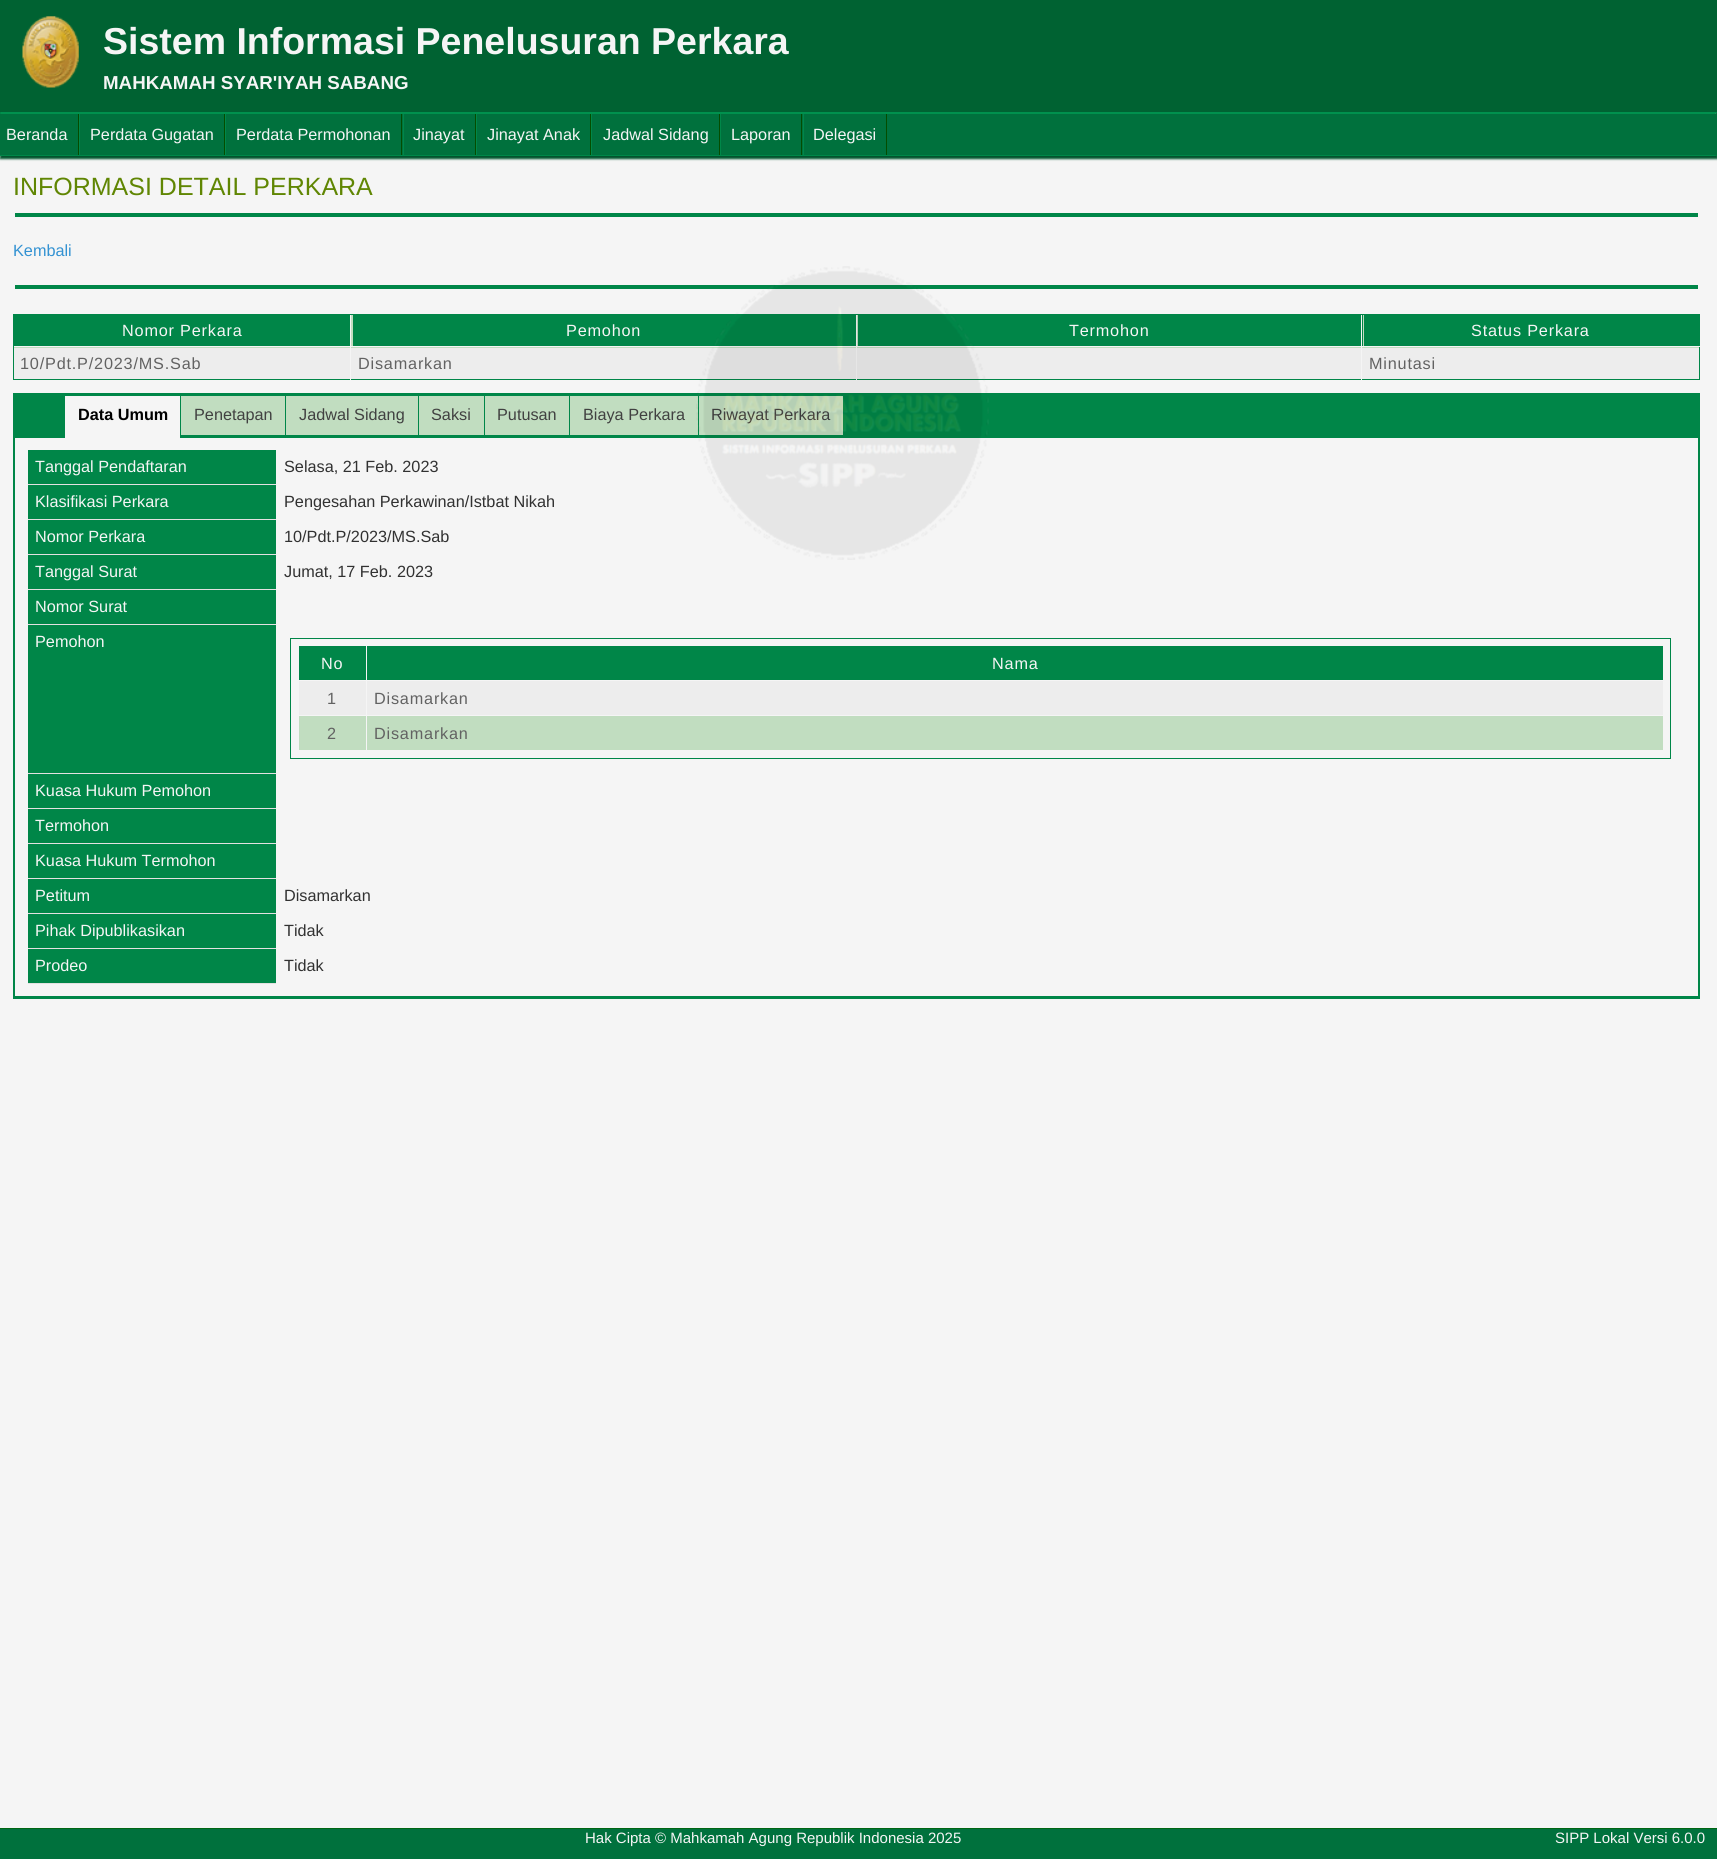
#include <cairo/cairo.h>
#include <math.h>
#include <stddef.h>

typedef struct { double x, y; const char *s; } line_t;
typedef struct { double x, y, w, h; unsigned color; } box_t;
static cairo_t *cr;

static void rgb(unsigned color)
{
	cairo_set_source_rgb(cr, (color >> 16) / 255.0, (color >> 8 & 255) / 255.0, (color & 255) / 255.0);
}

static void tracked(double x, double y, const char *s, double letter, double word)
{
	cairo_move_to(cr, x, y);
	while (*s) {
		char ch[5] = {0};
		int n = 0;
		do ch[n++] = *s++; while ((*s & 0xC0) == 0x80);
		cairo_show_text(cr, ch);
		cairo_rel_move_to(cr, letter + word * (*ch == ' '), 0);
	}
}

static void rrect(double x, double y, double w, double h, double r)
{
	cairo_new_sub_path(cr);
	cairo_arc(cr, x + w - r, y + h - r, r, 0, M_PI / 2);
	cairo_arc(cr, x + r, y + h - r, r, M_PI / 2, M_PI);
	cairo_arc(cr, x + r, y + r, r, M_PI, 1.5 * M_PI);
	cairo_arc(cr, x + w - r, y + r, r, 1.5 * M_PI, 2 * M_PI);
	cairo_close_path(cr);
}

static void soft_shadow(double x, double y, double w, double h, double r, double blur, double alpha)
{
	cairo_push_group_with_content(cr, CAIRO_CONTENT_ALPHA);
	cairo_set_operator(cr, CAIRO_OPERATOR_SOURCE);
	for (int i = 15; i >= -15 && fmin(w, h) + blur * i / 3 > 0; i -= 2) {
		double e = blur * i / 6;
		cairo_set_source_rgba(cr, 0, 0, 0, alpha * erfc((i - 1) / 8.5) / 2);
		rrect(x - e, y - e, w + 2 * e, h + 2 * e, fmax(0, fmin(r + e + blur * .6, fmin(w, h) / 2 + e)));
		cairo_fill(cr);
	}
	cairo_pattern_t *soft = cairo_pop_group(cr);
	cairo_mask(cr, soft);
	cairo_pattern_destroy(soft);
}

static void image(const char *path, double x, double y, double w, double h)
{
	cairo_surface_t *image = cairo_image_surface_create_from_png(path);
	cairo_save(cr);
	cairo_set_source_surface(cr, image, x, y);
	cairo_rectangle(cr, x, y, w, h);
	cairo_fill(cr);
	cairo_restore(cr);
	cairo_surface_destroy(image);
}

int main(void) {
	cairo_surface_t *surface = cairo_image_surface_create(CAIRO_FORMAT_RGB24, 1717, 1859);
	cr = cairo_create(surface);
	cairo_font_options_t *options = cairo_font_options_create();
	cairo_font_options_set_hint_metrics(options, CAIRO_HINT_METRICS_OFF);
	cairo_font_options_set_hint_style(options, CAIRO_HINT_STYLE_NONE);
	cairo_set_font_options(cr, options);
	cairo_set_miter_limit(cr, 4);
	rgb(0xf5f5f5);
	cairo_paint(cr);
	rgb(0x575757);
	soft_shadow(0, 0, 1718, 113, 0, 6, 1);
	rgb(0x006232);
	cairo_rectangle(cr, 0, 0, 1717, 113);
	cairo_fill(cr);
	image("img/1.png", 22, 16, 57, 72);
	rgb(0x00542d);
	soft_shadow(0, 115, 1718, 44, 0, 1, 1);
	rgb(0x00713d);
	cairo_rectangle(cr, 80, 114, 1635, 41);
	cairo_fill(cr);
	rgb(0x00914e);
	cairo_new_path(cr);
	cairo_move_to(cr, 0, 112);
	cairo_line_to(cr, 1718, 112);
	cairo_line_to(cr, 1715, 114);
	cairo_line_to(cr, 1, 114);
	cairo_close_path(cr);
	cairo_fill(cr);
	rgb(0x00713d);
	cairo_new_path(cr);
	cairo_move_to(cr, 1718, 112);
	cairo_line_to(cr, 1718, 156);
	cairo_line_to(cr, 1715, 155);
	cairo_line_to(cr, 1715, 114);
	cairo_close_path(cr);
	cairo_fill(cr);
	rgb(0x008749);
	cairo_new_path(cr);
	cairo_move_to(cr, 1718, 156);
	cairo_line_to(cr, 0, 156);
	cairo_line_to(cr, 1, 155);
	cairo_line_to(cr, 1715, 155);
	cairo_close_path(cr);
	cairo_fill(cr);
	{
		static const box_t items[] = {
			{0, 113, 1, 43, 0x008749},
			{0, 114, 78, 41, 0x00713d},
			{78, 114, 1, 41, 0x044d00},
			{224, 114, 1, 41, 0x044d00},
			{79, 114, 1, 41, 0x008749},
			{401, 114, 1, 41, 0x044d00},
			{225, 114, 1, 41, 0x008749},
			{475, 114, 1, 41, 0x044d00},
			{403, 114, 1, 41, 0x008749},
			{590, 114, 1, 41, 0x044d00},
			{476, 114, 1, 41, 0x008749},
			{719, 114, 1, 41, 0x044d00},
			{591, 114, 1, 41, 0x008749},
			{801, 114, 1, 41, 0x044d00},
			{720, 114, 1, 41, 0x008749},
			{886, 114, 1, 41, 0x044d00},
			{803, 114, 1, 41, 0x008749},
			{15, 213, 1683, 4, 0x008648},
			{15, 285, 1683, 4, 0x008648},
		};
		for (size_t i = 0; i < sizeof items / sizeof *items; i++) {
			rgb(items[i].color);
			cairo_rectangle(cr, items[i].x, items[i].y, items[i].w, items[i].h);
			cairo_fill(cr);
		}
	}
	cairo_rectangle(cr, 13.5, 314.5, 1686, 65);
	cairo_set_line_width(cr, 1);
	cairo_stroke(cr);
	{
		static const box_t items[] = {
			{14, 315, 1685, 33, 0xc1ddc0},
			{14, 315, 336, 31, 0x008648},
			{14, 348, 1685, 31, 0xededed},
			{1361, 346, 1, 34, 0xf5f5f5},
			{1361, 346, 339, 1, 0xf5f5f5},
			{858, 315, 505, 31, 0x008648},
			{1361, 315, 1, 33, 0xf5f5f5},
			{856, 346, 1, 34, 0xf5f5f5},
			{856, 346, 507, 1, 0xf5f5f5},
			{856, 315, 1, 33, 0xf5f5f5},
			{350, 346, 1, 34, 0xf5f5f5},
			{350, 346, 508, 1, 0xf5f5f5},
			{350, 315, 1, 33, 0xf5f5f5},
			{14, 346, 337, 1, 0xf5f5f5},
			{353, 315, 503, 31, 0x008648},
			{1364, 315, 335, 31, 0x008648},
			{13, 393, 1687, 606, 0x008648},
			{65, 396, 115, 42, 0xf5f5f5},
			{181, 396, 104, 39, 0xc1ddc0},
			{286, 396, 132, 39, 0xc1ddc0},
			{419, 396, 65, 39, 0xc1ddc0},
			{485, 396, 84, 39, 0xc1ddc0},
			{570, 396, 128, 39, 0xc1ddc0},
			{699, 396, 144, 39, 0xc1ddc0},
			{15, 438, 1683, 558, 0xf5f5f5},
			{28, 450, 248, 34, 0x008648},
			{28, 484, 248, 1, 0xe3e1e1},
			{28, 485, 248, 34, 0x008648},
			{28, 519, 248, 1, 0xe3e1e1},
			{28, 520, 248, 34, 0x008648},
			{28, 554, 248, 1, 0xe3e1e1},
			{28, 555, 248, 34, 0x008648},
			{28, 589, 248, 1, 0xe3e1e1},
			{28, 590, 248, 34, 0x008648},
			{28, 624, 248, 1, 0xe3e1e1},
			{28, 625, 248, 148, 0x008648},
			{28, 773, 248, 1, 0xe3e1e1},
		};
		for (size_t i = 0; i < sizeof items / sizeof *items; i++) {
			rgb(items[i].color);
			cairo_rectangle(cr, items[i].x, items[i].y, items[i].w, items[i].h);
			cairo_fill(cr);
		}
	}
	cairo_rectangle(cr, 290.5, 638.5, 1380, 120);
	rgb(0x008648);
	cairo_stroke(cr);
	{
		static const box_t items[] = {
			{299, 646, 67, 34, 0x008648},
			{367, 646, 1296, 34, 0x008648},
			{299, 681, 1364, 34, 0xededed},
			{299, 716, 1364, 34, 0xc1ddc0},
			{366, 680, 1, 71, 0xf5f5f5},
			{28, 774, 248, 34, 0x008648},
			{28, 808, 248, 1, 0xe3e1e1},
			{28, 809, 248, 34, 0x008648},
			{28, 843, 248, 1, 0xe3e1e1},
			{28, 844, 248, 34, 0x008648},
			{28, 878, 248, 1, 0xe3e1e1},
			{28, 879, 248, 34, 0x008648},
			{28, 913, 248, 1, 0xe3e1e1},
			{28, 914, 248, 34, 0x008648},
			{28, 948, 248, 1, 0xe3e1e1},
			{28, 949, 248, 34, 0x008648},
			{28, 983, 248, 1, 0xe3e1e1},
			{0, 1829, 1717, 30, 0x00713d},
			{0, 1828, 1717, 1, 0x006613},
		};
		for (size_t i = 0; i < sizeof items / sizeof *items; i++) {
			rgb(items[i].color);
			cairo_rectangle(cr, items[i].x, items[i].y, items[i].w, items[i].h);
			cairo_fill(cr);
		}
	}
	cairo_select_font_face(cr, "Liberation Sans", CAIRO_FONT_SLANT_NORMAL, CAIRO_FONT_WEIGHT_BOLD);
	cairo_set_font_size(cr, 37.5);
	rgb(0xf5f5f5);
	cairo_move_to(cr, 103, 54);
	cairo_show_text(cr, "Sistem Informasi Penelusuran Perkara");
	cairo_set_font_size(cr, 18.75);
	cairo_move_to(cr, 103, 89);
	cairo_show_text(cr, "MAHKAMAH SYAR'IYAH SABANG");
	cairo_select_font_face(cr, "Liberation Sans", CAIRO_FONT_SLANT_NORMAL, CAIRO_FONT_WEIGHT_NORMAL);
	cairo_set_font_size(cr, 16.25);
	{
		static const line_t items[] = {
			{6, 140, "Beranda"},
			{90, 140, "Perdata Gugatan"},
			{236, 140, "Perdata Permohonan"},
			{413, 140, "Jinayat"},
			{487, 140, "Jinayat Anak"},
			{603, 140, "Jadwal Sidang"},
			{731, 140, "Laporan"},
			{813, 140, "Delegasi"},
		};
		for (size_t i = 0; i < sizeof items / sizeof *items; i++) {
			cairo_move_to(cr, items[i].x, items[i].y);
			cairo_show_text(cr, items[i].s);
		}
	}
	cairo_set_font_size(cr, 25);
	rgb(0x608603);
	cairo_move_to(cr, 13, 195);
	cairo_show_text(cr, "INFORMASI DETAIL PERKARA");
	cairo_set_font_size(cr, 16.25);
	rgb(0x3392d2);
	cairo_move_to(cr, 13, 256);
	cairo_show_text(cr, "Kembali");
	rgb(0xf5f5f5);
	{
		static const line_t items[] = {
			{122, 336, "Nomor Perkara"},
			{566, 336, "Pemohon"},
			{1069, 336, "Termohon"},
			{1471, 336, "Status Perkara"},
		};
		for (size_t i = 0; i < sizeof items / sizeof *items; i++) {
			tracked(items[i].x, items[i].y, items[i].s, 0.8, 0);
		}
	}
	rgb(0x626262);
	{
		static const line_t items[] = {
			{20, 369, "10/Pdt.P/2023/MS.Sab"},
			{358, 369, "Disamarkan"},
			{1369, 369, "Minutasi"},
		};
		for (size_t i = 0; i < sizeof items / sizeof *items; i++) {
			tracked(items[i].x, items[i].y, items[i].s, 0.8, 0);
		}
	}
	cairo_select_font_face(cr, "Liberation Sans", CAIRO_FONT_SLANT_NORMAL, CAIRO_FONT_WEIGHT_BOLD);
	rgb(0x000000);
	cairo_move_to(cr, 78, 420);
	cairo_show_text(cr, "Data Umum");
	cairo_select_font_face(cr, "Liberation Sans", CAIRO_FONT_SLANT_NORMAL, CAIRO_FONT_WEIGHT_NORMAL);
	rgb(0x414141);
	{
		static const line_t items[] = {
			{194, 420, "Penetapan"},
			{299, 420, "Jadwal Sidang"},
			{431, 420, "Saksi"},
			{497, 420, "Putusan"},
			{583, 420, "Biaya Perkara"},
			{711, 420, "Riwayat Perkara"},
		};
		for (size_t i = 0; i < sizeof items / sizeof *items; i++) {
			cairo_move_to(cr, items[i].x, items[i].y);
			cairo_show_text(cr, items[i].s);
		}
	}
	rgb(0xf5f5f5);
	cairo_move_to(cr, 35, 472);
	cairo_show_text(cr, "Tanggal Pendaftaran");
	rgb(0x313131);
	cairo_move_to(cr, 284, 472);
	cairo_show_text(cr, "Selasa, 21 Feb. 2023");
	rgb(0xf5f5f5);
	cairo_move_to(cr, 35, 507);
	cairo_show_text(cr, "Klasifikasi Perkara");
	rgb(0x313131);
	cairo_move_to(cr, 284, 507);
	cairo_show_text(cr, "Pengesahan Perkawinan/Istbat Nikah");
	rgb(0xf5f5f5);
	cairo_move_to(cr, 35, 542);
	cairo_show_text(cr, "Nomor Perkara");
	rgb(0x313131);
	cairo_move_to(cr, 284, 542);
	cairo_show_text(cr, "10/Pdt.P/2023/MS.Sab");
	rgb(0xf5f5f5);
	cairo_move_to(cr, 35, 577);
	cairo_show_text(cr, "Tanggal Surat");
	rgb(0x313131);
	cairo_move_to(cr, 284, 577);
	cairo_show_text(cr, "Jumat, 17 Feb. 2023");
	rgb(0xf5f5f5);
	cairo_move_to(cr, 35, 612);
	cairo_show_text(cr, "Nomor Surat");
	cairo_move_to(cr, 35, 647);
	cairo_show_text(cr, "Pemohon");
	tracked(321, 669, "No", 0.8, 0);
	tracked(992, 669, "Nama", 0.8, 0);
	rgb(0x626262);
	{
		static const line_t items[] = {
			{327, 704, "1"},
			{374, 704, "Disamarkan"},
			{327, 739, "2"},
			{374, 739, "Disamarkan"},
		};
		for (size_t i = 0; i < sizeof items / sizeof *items; i++) {
			tracked(items[i].x, items[i].y, items[i].s, 0.8, 0);
		}
	}
	rgb(0xf5f5f5);
	{
		static const line_t items[] = {
			{35, 796, "Kuasa Hukum Pemohon"},
			{35, 831, "Termohon"},
			{35, 866, "Kuasa Hukum Termohon"},
			{35, 901, "Petitum"},
		};
		for (size_t i = 0; i < sizeof items / sizeof *items; i++) {
			cairo_move_to(cr, items[i].x, items[i].y);
			cairo_show_text(cr, items[i].s);
		}
	}
	rgb(0x313131);
	cairo_move_to(cr, 284, 901);
	cairo_show_text(cr, "Disamarkan");
	rgb(0xf5f5f5);
	cairo_move_to(cr, 35, 936);
	cairo_show_text(cr, "Pihak Dipublikasikan");
	rgb(0x313131);
	cairo_move_to(cr, 284, 936);
	cairo_show_text(cr, "Tidak");
	rgb(0xf5f5f5);
	cairo_move_to(cr, 35, 971);
	cairo_show_text(cr, "Prodeo");
	rgb(0x313131);
	cairo_move_to(cr, 284, 971);
	cairo_show_text(cr, "Tidak");
	cairo_set_font_size(cr, 15);
	rgb(0xf5f5f5);
	cairo_move_to(cr, 585, 1843);
	cairo_show_text(cr, "Hak Cipta © Mahkamah Agung Republik Indonesia 2025");
	cairo_move_to(cr, 1555, 1843);
	cairo_show_text(cr, "SIPP Lokal Versi 6.0.0");
	image("img/2.png", 696, 266, 293, 294);
	cairo_surface_write_to_png(surface, "page.png");
	cairo_font_options_destroy(options);
	cairo_destroy(cr);
	cairo_surface_destroy(surface);
	return 0;
}
